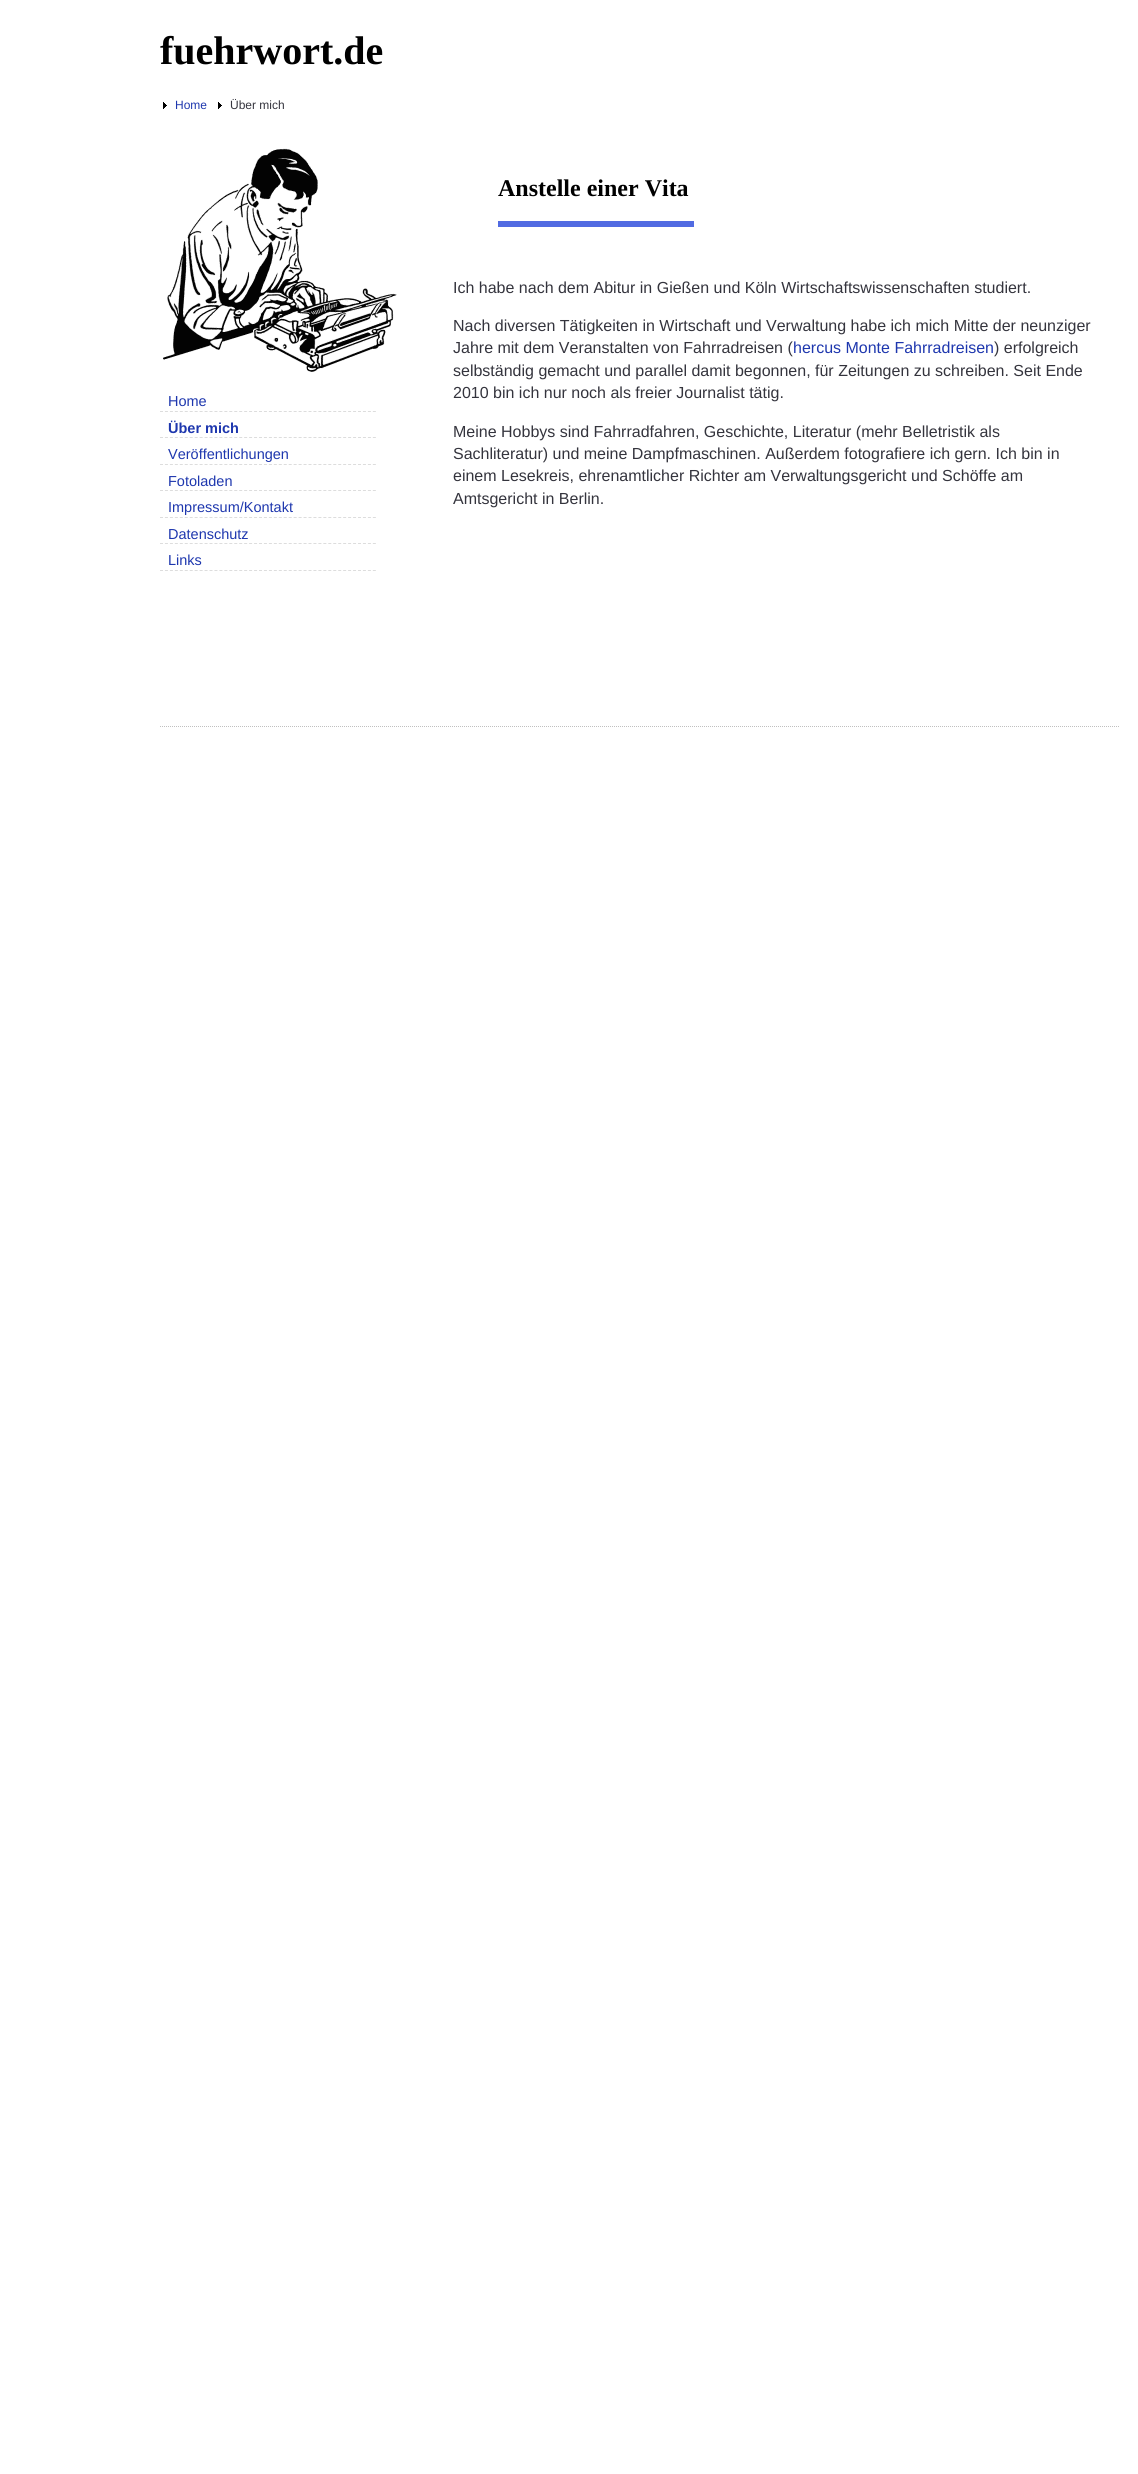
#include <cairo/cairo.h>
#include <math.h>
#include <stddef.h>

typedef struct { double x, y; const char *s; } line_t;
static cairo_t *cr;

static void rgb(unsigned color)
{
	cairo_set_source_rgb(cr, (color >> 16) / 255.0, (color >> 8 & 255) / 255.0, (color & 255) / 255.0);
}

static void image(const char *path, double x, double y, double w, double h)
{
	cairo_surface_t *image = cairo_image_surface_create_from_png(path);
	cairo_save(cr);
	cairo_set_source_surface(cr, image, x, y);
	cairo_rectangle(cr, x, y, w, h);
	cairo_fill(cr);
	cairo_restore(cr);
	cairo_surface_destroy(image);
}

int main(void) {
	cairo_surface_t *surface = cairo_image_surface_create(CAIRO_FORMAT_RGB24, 1138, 2474);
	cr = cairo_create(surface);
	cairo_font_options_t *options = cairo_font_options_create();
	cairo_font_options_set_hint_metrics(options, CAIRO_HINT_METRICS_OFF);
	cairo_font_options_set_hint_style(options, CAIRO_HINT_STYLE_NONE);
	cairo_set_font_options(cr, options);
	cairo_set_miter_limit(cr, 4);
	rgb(0xffffff);
	cairo_paint(cr);
	image("img/1.png", 163, 102, 4, 7);
	image("img/1.png", 218, 102, 4, 7);
	image("img/2.png", 163, 148, 234, 224);
	cairo_new_path(cr);
	cairo_move_to(cr, 160, 411.5);
	cairo_line_to(cr, 376, 411.5);
	rgb(0xdddddd);
	cairo_set_line_width(cr, 1);
	cairo_set_dash(cr, (double[]){3, 1.95}, 2, 0);
	cairo_stroke(cr);
	cairo_new_path(cr);
	cairo_move_to(cr, 160, 437.5);
	cairo_line_to(cr, 376, 437.5);
	cairo_stroke(cr);
	cairo_new_path(cr);
	cairo_move_to(cr, 160, 464.5);
	cairo_line_to(cr, 376, 464.5);
	cairo_stroke(cr);
	cairo_new_path(cr);
	cairo_move_to(cr, 160, 490.5);
	cairo_line_to(cr, 376, 490.5);
	cairo_stroke(cr);
	cairo_new_path(cr);
	cairo_move_to(cr, 160, 517.5);
	cairo_line_to(cr, 376, 517.5);
	cairo_stroke(cr);
	cairo_new_path(cr);
	cairo_move_to(cr, 160, 543.5);
	cairo_line_to(cr, 376, 543.5);
	cairo_stroke(cr);
	cairo_new_path(cr);
	cairo_move_to(cr, 160, 570.5);
	cairo_line_to(cr, 376, 570.5);
	cairo_stroke(cr);
	rgb(0x516be2);
	cairo_rectangle(cr, 498, 221, 196, 6);
	cairo_fill(cr);
	cairo_new_path(cr);
	cairo_move_to(cr, 160, 726.5);
	cairo_line_to(cr, 1120, 726.5);
	rgb(0xc0c0c0);
	cairo_set_dash(cr, (double[]){1, 1}, 2, 0);
	cairo_stroke(cr);
	cairo_select_font_face(cr, "Liberation Serif", CAIRO_FONT_SLANT_NORMAL, CAIRO_FONT_WEIGHT_BOLD);
	cairo_set_font_size(cr, 40);
	rgb(0x000000);
	cairo_move_to(cr, 160, 64);
	cairo_show_text(cr, "fuehrwort.de");
	cairo_select_font_face(cr, "Liberation Sans", CAIRO_FONT_SLANT_NORMAL, CAIRO_FONT_WEIGHT_NORMAL);
	cairo_set_font_size(cr, 12);
	rgb(0x1e37ae);
	cairo_move_to(cr, 175, 109);
	cairo_show_text(cr, "Home");
	rgb(0x34343d);
	cairo_move_to(cr, 230, 109);
	cairo_show_text(cr, "Über mich");
	cairo_set_font_size(cr, 14.5);
	rgb(0x1e37ae);
	cairo_move_to(cr, 168, 406);
	cairo_show_text(cr, "Home");
	cairo_select_font_face(cr, "Liberation Sans", CAIRO_FONT_SLANT_NORMAL, CAIRO_FONT_WEIGHT_BOLD);
	cairo_move_to(cr, 168, 433);
	cairo_show_text(cr, "Über mich");
	cairo_select_font_face(cr, "Liberation Sans", CAIRO_FONT_SLANT_NORMAL, CAIRO_FONT_WEIGHT_NORMAL);
	{
		static const line_t items[] = {
			{168, 459, "Veröffentlichungen"},
			{168, 486, "Fotoladen"},
			{168, 512, "Impressum/Kontakt"},
			{168, 539, "Datenschutz"},
			{168, 565, "Links"},
		};
		for (size_t i = 0; i < sizeof items / sizeof *items; i++) {
			cairo_move_to(cr, items[i].x, items[i].y);
			cairo_show_text(cr, items[i].s);
		}
	}
	cairo_select_font_face(cr, "Liberation Serif", CAIRO_FONT_SLANT_NORMAL, CAIRO_FONT_WEIGHT_BOLD);
	cairo_set_font_size(cr, 24);
	rgb(0x000000);
	cairo_move_to(cr, 498, 196);
	cairo_show_text(cr, "Anstelle einer Vita");
	cairo_select_font_face(cr, "Liberation Sans", CAIRO_FONT_SLANT_NORMAL, CAIRO_FONT_WEIGHT_NORMAL);
	cairo_set_font_size(cr, 16);
	rgb(0x34343d);
	{
		static const line_t items[] = {
			{453, 293, "Ich habe nach dem Abitur in Gießen und Köln Wirtschaftswissenschaften studiert."},
			{453, 331, "Nach diversen Tätigkeiten in Wirtschaft und Verwaltung habe ich mich Mitte der neunziger"},
			{453, 353, "Jahre mit dem Veranstalten von Fahrradreisen ("},
		};
		for (size_t i = 0; i < sizeof items / sizeof *items; i++) {
			cairo_move_to(cr, items[i].x, items[i].y);
			cairo_show_text(cr, items[i].s);
		}
	}
	rgb(0x1e37ae);
	cairo_move_to(cr, 793, 353);
	cairo_show_text(cr, "hercus Monte Fahrradreisen");
	rgb(0x34343d);
	{
		static const line_t items[] = {
			{994, 353, ") erfolgreich"},
			{453, 376, "selbständig gemacht und parallel damit begonnen, für Zeitungen zu schreiben. Seit Ende"},
			{453, 398, "2010 bin ich nur noch als freier Journalist tätig."},
			{453, 437, "Meine Hobbys sind Fahrradfahren, Geschichte, Literatur (mehr Belletristik als"},
			{453, 459, "Sachliteratur) und meine Dampfmaschinen. Außerdem fotografiere ich gern. Ich bin in"},
			{453, 481, "einem Lesekreis, ehrenamtlicher Richter am Verwaltungsgericht und Schöffe am"},
			{453, 504, "Amtsgericht in Berlin."},
		};
		for (size_t i = 0; i < sizeof items / sizeof *items; i++) {
			cairo_move_to(cr, items[i].x, items[i].y);
			cairo_show_text(cr, items[i].s);
		}
	}
	cairo_surface_write_to_png(surface, "page.png");
	cairo_font_options_destroy(options);
	cairo_destroy(cr);
	cairo_surface_destroy(surface);
	return 0;
}
